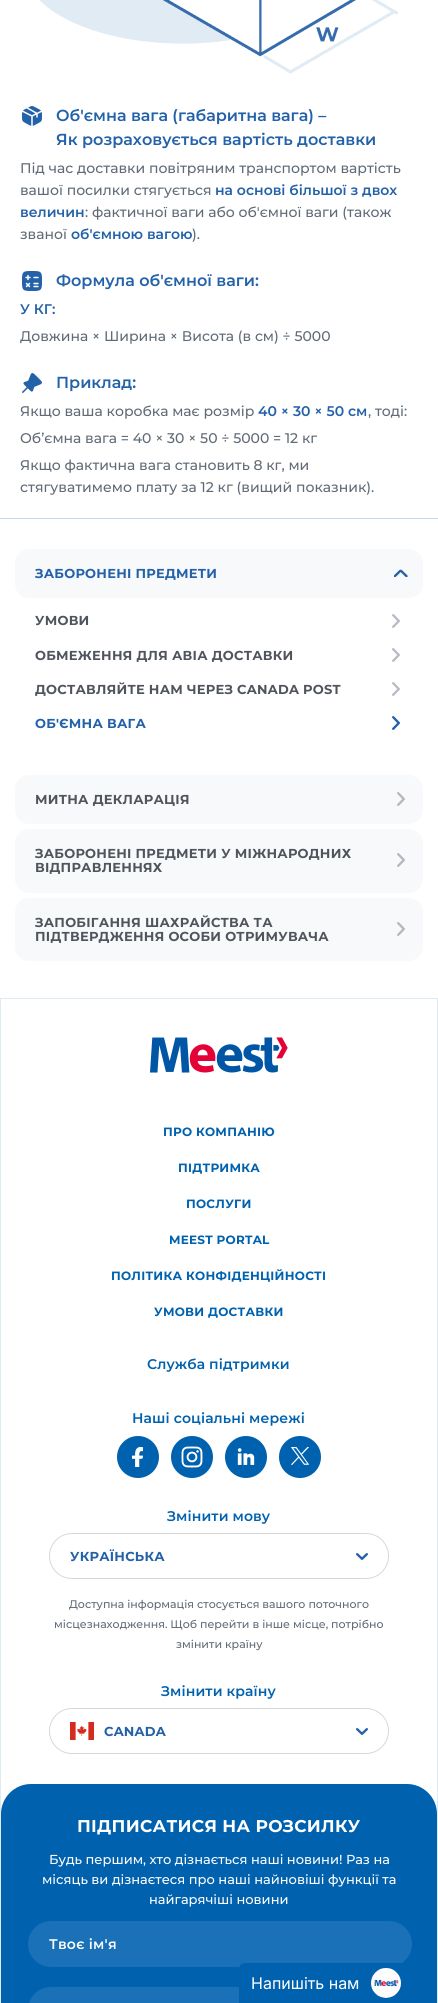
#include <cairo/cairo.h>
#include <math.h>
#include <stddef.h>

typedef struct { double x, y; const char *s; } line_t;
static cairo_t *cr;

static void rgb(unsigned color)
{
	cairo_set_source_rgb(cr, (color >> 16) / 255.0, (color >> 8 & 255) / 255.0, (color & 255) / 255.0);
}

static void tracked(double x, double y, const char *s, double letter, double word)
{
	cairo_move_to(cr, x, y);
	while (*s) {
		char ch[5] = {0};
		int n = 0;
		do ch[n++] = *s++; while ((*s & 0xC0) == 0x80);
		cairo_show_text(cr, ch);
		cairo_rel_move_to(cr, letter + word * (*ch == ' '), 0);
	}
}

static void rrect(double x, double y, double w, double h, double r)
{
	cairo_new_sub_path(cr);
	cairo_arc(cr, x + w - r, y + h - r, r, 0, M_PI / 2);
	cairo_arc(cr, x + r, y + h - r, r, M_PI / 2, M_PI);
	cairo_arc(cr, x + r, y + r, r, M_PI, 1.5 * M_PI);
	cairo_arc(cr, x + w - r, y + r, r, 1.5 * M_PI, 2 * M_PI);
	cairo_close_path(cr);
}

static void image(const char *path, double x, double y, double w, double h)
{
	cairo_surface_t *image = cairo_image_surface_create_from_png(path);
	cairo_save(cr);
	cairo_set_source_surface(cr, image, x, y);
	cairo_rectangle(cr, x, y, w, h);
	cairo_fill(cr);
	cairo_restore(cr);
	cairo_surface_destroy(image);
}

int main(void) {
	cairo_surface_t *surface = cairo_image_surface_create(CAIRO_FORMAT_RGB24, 438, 2003);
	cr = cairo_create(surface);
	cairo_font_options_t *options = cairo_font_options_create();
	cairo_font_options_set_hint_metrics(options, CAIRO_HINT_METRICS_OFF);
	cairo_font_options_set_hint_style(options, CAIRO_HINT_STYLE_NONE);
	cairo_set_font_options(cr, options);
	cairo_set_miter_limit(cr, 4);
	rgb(0xffffff);
	cairo_paint(cr);
	image("img/1.png", 39, 0, 359, 74);
	image("img/2.png", 22, 106, 20, 20);
	image("img/3.png", 22, 271, 20, 20);
	image("img/4.png", 22, 373, 20, 20);
	rgb(0xc8daec);
	cairo_rectangle(cr, 0, 518, 438, 1);
	cairo_fill(cr);
	rgb(0xf8f9fa);
	rrect(15, 549, 408, 49, 14);
	cairo_fill(cr);
	image("img/5.png", 394, 569, 14, 9);
	image("img/6.png", 392, 614, 8, 14);
	image("img/6.png", 392, 648, 8, 14);
	image("img/6.png", 392, 682, 8, 14);
	image("img/7.png", 392, 716, 8, 14);
	rrect(15, 775, 408, 49, 14);
	cairo_fill(cr);
	image("img/8.png", 397, 792, 8, 14);
	rrect(15, 829, 408, 64, 14);
	cairo_fill(cr);
	image("img/8.png", 397, 853, 8, 14);
	rrect(15, 898, 408, 63, 14);
	cairo_fill(cr);
	image("img/8.png", 397, 922, 8, 14);
	cairo_rectangle(cr, 0.5, 998.5, 437, 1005);
	rgb(0xdeebf5);
	cairo_set_line_width(cr, 1);
	cairo_stroke(cr);
	image("img/9.png", 150, 1037, 138, 36);
	image("img/10.png", 117, 1436, 42, 42);
	image("img/11.png", 171, 1436, 42, 42);
	image("img/12.png", 225, 1436, 42, 42);
	image("img/13.png", 279, 1436, 42, 42);
	rrect(49.5, 1533.5, 339, 45, 22.5);
	rgb(0xd7d8d9);
	cairo_stroke(cr);
	image("img/14.png", 356, 1553, 12, 7);
	rrect(49.5, 1708.5, 339, 45, 22.5);
	cairo_stroke(cr);
	image("img/15.png", 70, 1722, 24, 18);
	image("img/14.png", 356, 1728, 12, 7);
	rgb(0x0061af);
	cairo_new_path(cr);
	cairo_move_to(cr, 31, 1784);
	cairo_line_to(cr, 407, 1784);
	cairo_curve_to(cr, 423.5, 1784, 437, 1797.5, 437, 1814);
	cairo_line_to(cr, 437, 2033);
	cairo_line_to(cr, 1, 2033);
	cairo_line_to(cr, 1, 1814);
	cairo_curve_to(cr, 1, 1797.5, 14.5, 1784, 31, 1784);
	cairo_close_path(cr);
	cairo_fill(cr);
	rgb(0x1a71b7);
	rrect(28, 1921, 384, 46, 23);
	cairo_fill(cr);
	rrect(28, 1987, 384, 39, 23);
	cairo_fill(cr);
	rgb(0x0061af);
	cairo_new_path(cr);
	cairo_move_to(cr, 245, 1963);
	cairo_line_to(cr, 407, 1963);
	cairo_curve_to(cr, 410.5, 1963, 413, 1965.5, 413, 1969);
	cairo_line_to(cr, 413, 2003);
	cairo_line_to(cr, 239, 2003);
	cairo_line_to(cr, 239, 1969);
	cairo_curve_to(cr, 239, 1965.5, 241.5, 1963, 245, 1963);
	cairo_close_path(cr);
	cairo_fill(cr);
	image("img/16.png", 371, 1968, 30, 30);
	cairo_select_font_face(cr, "Montserrat SemiBold", CAIRO_FONT_SLANT_NORMAL, CAIRO_FONT_WEIGHT_NORMAL);
	cairo_set_font_size(cr, 16);
	rgb(0x2361a9);
	cairo_move_to(cr, 56, 121);
	cairo_show_text(cr, "Об'ємна вага (габаритна вага) –");
	cairo_move_to(cr, 56, 145);
	cairo_show_text(cr, "Як розраховується вартість доставки");
	cairo_select_font_face(cr, "Montserrat Medium", CAIRO_FONT_SLANT_NORMAL, CAIRO_FONT_WEIGHT_NORMAL);
	cairo_set_font_size(cr, 14);
	rgb(0x606b77);
	cairo_move_to(cr, 20, 173);
	cairo_show_text(cr, "Під час доставки повітряним транспортом вартість");
	cairo_move_to(cr, 20, 195);
	cairo_show_text(cr, "вашої посилки стягується");
	cairo_select_font_face(cr, "Montserrat SemiBold", CAIRO_FONT_SLANT_NORMAL, CAIRO_FONT_WEIGHT_NORMAL);
	rgb(0x2361a9);
	cairo_move_to(cr, 215, 195);
	cairo_show_text(cr, "на основі більшої з двох");
	cairo_move_to(cr, 20, 217);
	cairo_show_text(cr, "величин");
	cairo_select_font_face(cr, "Montserrat Medium", CAIRO_FONT_SLANT_NORMAL, CAIRO_FONT_WEIGHT_NORMAL);
	rgb(0x606b77);
	cairo_move_to(cr, 85, 217);
	cairo_show_text(cr, ": фактичної ваги або об'ємної ваги (також");
	cairo_move_to(cr, 20, 239);
	cairo_show_text(cr, "званої");
	cairo_select_font_face(cr, "Montserrat SemiBold", CAIRO_FONT_SLANT_NORMAL, CAIRO_FONT_WEIGHT_NORMAL);
	rgb(0x2361a9);
	cairo_move_to(cr, 71, 239);
	cairo_show_text(cr, "об'ємною вагою");
	cairo_select_font_face(cr, "Montserrat Medium", CAIRO_FONT_SLANT_NORMAL, CAIRO_FONT_WEIGHT_NORMAL);
	rgb(0x606b77);
	cairo_move_to(cr, 192, 239);
	cairo_show_text(cr, ").");
	cairo_select_font_face(cr, "Montserrat SemiBold", CAIRO_FONT_SLANT_NORMAL, CAIRO_FONT_WEIGHT_NORMAL);
	cairo_set_font_size(cr, 16);
	rgb(0x2361a9);
	cairo_move_to(cr, 56, 286);
	cairo_show_text(cr, "Формула об'ємної ваги:");
	cairo_set_font_size(cr, 14);
	cairo_move_to(cr, 20, 314);
	cairo_show_text(cr, "У КГ:");
	cairo_select_font_face(cr, "Montserrat Medium", CAIRO_FONT_SLANT_NORMAL, CAIRO_FONT_WEIGHT_NORMAL);
	rgb(0x606b77);
	cairo_move_to(cr, 20, 341);
	cairo_show_text(cr, "Довжина × Ширина × Висота (в см) ÷ 5000");
	cairo_select_font_face(cr, "Montserrat SemiBold", CAIRO_FONT_SLANT_NORMAL, CAIRO_FONT_WEIGHT_NORMAL);
	cairo_set_font_size(cr, 16);
	rgb(0x2361a9);
	cairo_move_to(cr, 56, 388);
	cairo_show_text(cr, "Приклад:");
	cairo_select_font_face(cr, "Montserrat Medium", CAIRO_FONT_SLANT_NORMAL, CAIRO_FONT_WEIGHT_NORMAL);
	cairo_set_font_size(cr, 14);
	rgb(0x606b77);
	cairo_move_to(cr, 20, 416);
	cairo_show_text(cr, "Якщо ваша коробка має розмір");
	cairo_select_font_face(cr, "Montserrat SemiBold", CAIRO_FONT_SLANT_NORMAL, CAIRO_FONT_WEIGHT_NORMAL);
	rgb(0x2361a9);
	cairo_move_to(cr, 258, 416);
	cairo_show_text(cr, "40 × 30 × 50 см");
	cairo_select_font_face(cr, "Montserrat Medium", CAIRO_FONT_SLANT_NORMAL, CAIRO_FONT_WEIGHT_NORMAL);
	rgb(0x606b77);
	{
		static const line_t items[] = {
			{368, 416, ", тоді:"},
			{20, 443, "Об’ємна вага = 40 × 30 × 50 ÷ 5000 = 12 кг"},
			{20, 470, "Якщо фактична вага становить 8 кг, ми"},
			{20, 492, "стягуватимемо плату за 12 кг (вищий показник)."},
		};
		for (size_t i = 0; i < sizeof items / sizeof *items; i++) {
			cairo_move_to(cr, items[i].x, items[i].y);
			cairo_show_text(cr, items[i].s);
		}
	}
	cairo_select_font_face(cr, "Montserrat", CAIRO_FONT_SLANT_NORMAL, CAIRO_FONT_WEIGHT_BOLD);
	cairo_set_font_size(cr, 13);
	rgb(0x2361a9);
	tracked(35, 578, "ЗАБОРОНЕНІ ПРЕДМЕТИ", 0.25, 0);
	rgb(0x50545d);
	{
		static const line_t items[] = {
			{35, 625, "УМОВИ"},
			{35, 660, "ОБМЕЖЕННЯ ДЛЯ АВІА ДОСТАВКИ"},
			{35, 694, "ДОСТАВЛЯЙТЕ НАМ ЧЕРЕЗ CANADA POST"},
		};
		for (size_t i = 0; i < sizeof items / sizeof *items; i++) {
			tracked(items[i].x, items[i].y, items[i].s, 0.25, 0);
		}
	}
	rgb(0x2361a9);
	tracked(35, 728, "ОБ'ЄМНА ВАГА", 0.25, 0);
	rgb(0x50545d);
	{
		static const line_t items[] = {
			{35, 804, "МИТНА ДЕКЛАРАЦІЯ"},
			{35, 858, "ЗАБОРОНЕНІ ПРЕДМЕТИ У МІЖНАРОДНИХ"},
			{35, 872, "ВІДПРАВЛЕННЯХ"},
			{35, 927, "ЗАПОБІГАННЯ ШАХРАЙСТВА ТА"},
			{35, 941, "ПІДТВЕРДЖЕННЯ ОСОБИ ОТРИМУВАЧА"},
		};
		for (size_t i = 0; i < sizeof items / sizeof *items; i++) {
			tracked(items[i].x, items[i].y, items[i].s, 0.25, 0);
		}
	}
	cairo_set_font_size(cr, 12);
	rgb(0x0061af);
	{
		static const line_t items[] = {
			{163, 1136, "ПРО КОМПАНІЮ"},
			{178, 1172, "ПІДТРИМКА"},
			{186, 1208, "ПОСЛУГИ"},
			{169, 1244, "MEEST PORTAL"},
			{111, 1280, "ПОЛІТИКА КОНФІДЕНЦІЙНОСТІ"},
			{154, 1316, "УМОВИ ДОСТАВКИ"},
		};
		for (size_t i = 0; i < sizeof items / sizeof *items; i++) {
			tracked(items[i].x, items[i].y, items[i].s, 0.25, 0);
		}
	}
	cairo_select_font_face(cr, "Montserrat SemiBold", CAIRO_FONT_SLANT_NORMAL, CAIRO_FONT_WEIGHT_NORMAL);
	cairo_set_font_size(cr, 14);
	{
		static const line_t items[] = {
			{147, 1369, "Служба підтримки"},
			{132, 1423, "Наші соціальні мережі"},
			{167, 1521, "Змінити мову"},
		};
		for (size_t i = 0; i < sizeof items / sizeof *items; i++) {
			tracked(items[i].x, items[i].y, items[i].s, 0.1, 0);
		}
	}
	cairo_select_font_face(cr, "Montserrat", CAIRO_FONT_SLANT_NORMAL, CAIRO_FONT_WEIGHT_BOLD);
	cairo_set_font_size(cr, 13);
	rgb(0x2361a9);
	tracked(70, 1561, "УКРАЇНСЬКА", 0.25, 0);
	cairo_select_font_face(cr, "Montserrat Medium", CAIRO_FONT_SLANT_NORMAL, CAIRO_FONT_WEIGHT_NORMAL);
	cairo_set_font_size(cr, 11);
	rgb(0x606b77);
	{
		static const line_t items[] = {
			{69, 1608, "Доступна інформація стосується вашого поточного"},
			{54, 1628, "місцезнаходження. Щоб перейти в інше місце, потрібно"},
			{176, 1648, "змінити країну"},
		};
		for (size_t i = 0; i < sizeof items / sizeof *items; i++) {
			cairo_move_to(cr, items[i].x, items[i].y);
			cairo_show_text(cr, items[i].s);
		}
	}
	cairo_select_font_face(cr, "Montserrat SemiBold", CAIRO_FONT_SLANT_NORMAL, CAIRO_FONT_WEIGHT_NORMAL);
	cairo_set_font_size(cr, 14);
	rgb(0x0061af);
	tracked(161, 1696, "Змінити країну", 0.1, 0);
	cairo_select_font_face(cr, "Montserrat", CAIRO_FONT_SLANT_NORMAL, CAIRO_FONT_WEIGHT_BOLD);
	cairo_set_font_size(cr, 13);
	rgb(0x2361a9);
	tracked(104, 1736, "CANADA", 0.25, 0);
	cairo_set_font_size(cr, 17);
	rgb(0xffffff);
	tracked(77, 1832, "ПІДПИСАТИСЯ НА РОЗСИЛКУ", 0.3, 0);
	cairo_select_font_face(cr, "Montserrat Medium", CAIRO_FONT_SLANT_NORMAL, CAIRO_FONT_WEIGHT_NORMAL);
	cairo_set_font_size(cr, 13);
	{
		static const line_t items[] = {
			{49, 1864, "Будь першим, хто дізнається наші новини! Раз на"},
			{42, 1884, "місяць ви дізнаєтеся про наші найновіші функції та"},
			{149, 1904, "найгарячіші новини"},
		};
		for (size_t i = 0; i < sizeof items / sizeof *items; i++) {
			cairo_move_to(cr, items[i].x, items[i].y);
			cairo_show_text(cr, items[i].s);
		}
	}
	cairo_select_font_face(cr, "Montserrat SemiBold", CAIRO_FONT_SLANT_NORMAL, CAIRO_FONT_WEIGHT_NORMAL);
	cairo_set_font_size(cr, 14);
	tracked(49, 1949, "Твоє ім'я", 0.25, 0);
	cairo_select_font_face(cr, "Inter", CAIRO_FONT_SLANT_NORMAL, CAIRO_FONT_WEIGHT_NORMAL);
	cairo_set_font_size(cr, 16);
	cairo_move_to(cr, 251, 1989);
	cairo_show_text(cr, "Напишіть нам");
	cairo_surface_write_to_png(surface, "page.png");
	cairo_font_options_destroy(options);
	cairo_destroy(cr);
	cairo_surface_destroy(surface);
	return 0;
}
